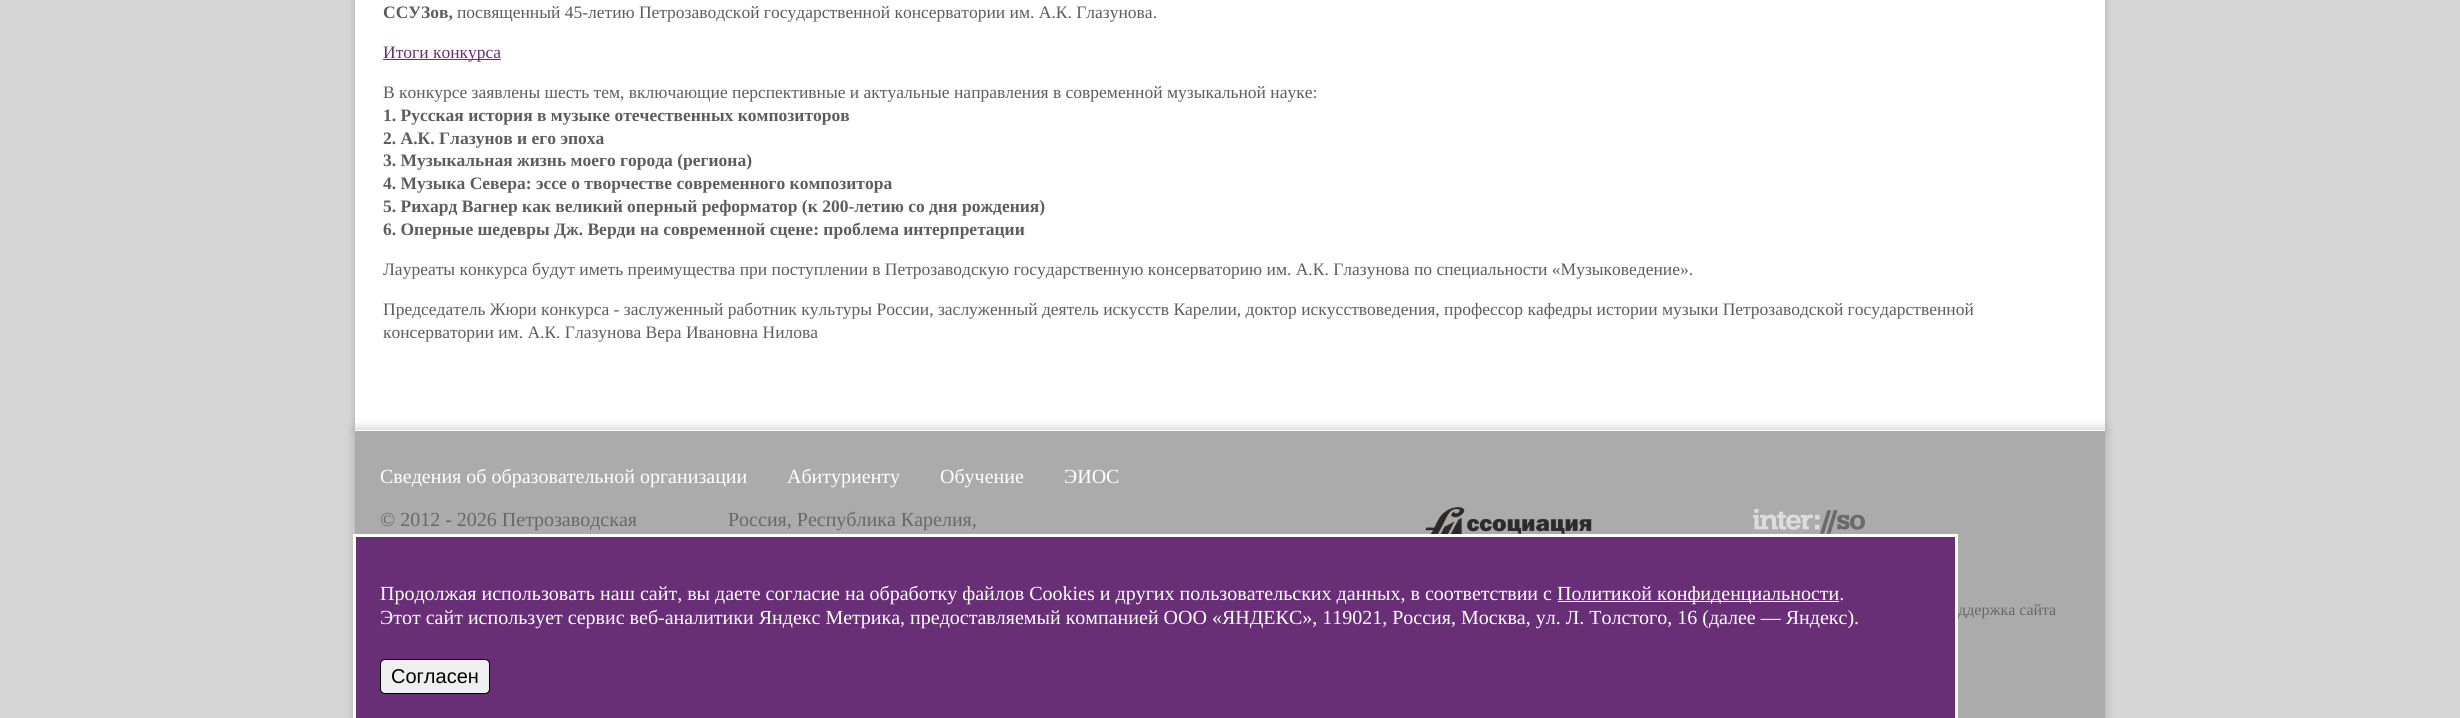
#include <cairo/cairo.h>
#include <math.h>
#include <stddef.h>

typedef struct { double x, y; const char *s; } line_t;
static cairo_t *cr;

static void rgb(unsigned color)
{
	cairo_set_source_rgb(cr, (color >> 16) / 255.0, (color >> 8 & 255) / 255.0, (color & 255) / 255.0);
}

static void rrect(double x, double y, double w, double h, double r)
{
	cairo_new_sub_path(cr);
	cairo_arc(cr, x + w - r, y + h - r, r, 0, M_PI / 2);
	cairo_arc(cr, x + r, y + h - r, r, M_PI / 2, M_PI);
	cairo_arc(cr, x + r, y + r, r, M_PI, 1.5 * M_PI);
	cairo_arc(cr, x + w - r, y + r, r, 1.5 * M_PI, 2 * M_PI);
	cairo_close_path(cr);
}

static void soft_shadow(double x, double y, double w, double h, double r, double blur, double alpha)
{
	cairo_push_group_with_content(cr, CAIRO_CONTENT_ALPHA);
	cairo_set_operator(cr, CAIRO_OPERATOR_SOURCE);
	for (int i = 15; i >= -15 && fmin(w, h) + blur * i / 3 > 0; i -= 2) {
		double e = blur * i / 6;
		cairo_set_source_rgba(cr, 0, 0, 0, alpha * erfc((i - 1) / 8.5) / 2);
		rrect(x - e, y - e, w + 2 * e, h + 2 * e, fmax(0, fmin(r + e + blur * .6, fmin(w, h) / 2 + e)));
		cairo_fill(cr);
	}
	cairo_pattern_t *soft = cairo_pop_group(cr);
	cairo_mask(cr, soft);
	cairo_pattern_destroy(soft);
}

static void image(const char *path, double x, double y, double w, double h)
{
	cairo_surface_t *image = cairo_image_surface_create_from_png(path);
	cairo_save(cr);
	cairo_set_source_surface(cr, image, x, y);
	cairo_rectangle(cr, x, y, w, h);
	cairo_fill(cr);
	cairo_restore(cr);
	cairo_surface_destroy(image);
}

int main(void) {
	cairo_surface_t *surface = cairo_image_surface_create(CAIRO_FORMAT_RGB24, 2460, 718);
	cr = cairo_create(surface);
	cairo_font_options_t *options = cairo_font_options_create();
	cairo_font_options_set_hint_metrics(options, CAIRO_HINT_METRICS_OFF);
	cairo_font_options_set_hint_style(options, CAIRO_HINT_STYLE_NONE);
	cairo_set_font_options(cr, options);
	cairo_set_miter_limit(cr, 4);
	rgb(0xd6d6d6);
	cairo_paint(cr);
	rgb(0x000000);
	soft_shadow(355, -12, 1750, 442, 0, 4, 0.2);
	rgb(0xffffff);
	cairo_rectangle(cr, 355, 0, 1750, 430);
	cairo_fill(cr);
	rgb(0x682f77);
	cairo_rectangle(cr, 383, 59, 118, 1);
	cairo_fill(cr);
	rgb(0x808080);
	soft_shadow(355, 430, 1750, 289, 0, 6, 0.5);
	rgb(0xababab);
	cairo_rectangle(cr, 355, 431, 1750, 287);
	cairo_fill(cr);
	rgb(0xffffff);
	cairo_rectangle(cr, 355, 430, 1750, 1);
	cairo_fill(cr);
	image("img/1.png", 1425, 507, 167, 27);
	image("img/2.png", 1753, 509, 112, 25);
	rgb(0x682f77);
	cairo_rectangle(cr, 356, 537, 1599, 181);
	cairo_fill(cr);
	rgb(0xffffff);
	cairo_rectangle(cr, 1558, 601, 281, 1);
	cairo_fill(cr);
	rgb(0xefefef);
	rrect(380.5, 659.5, 109, 34, 4.5);
	cairo_fill_preserve(cr);
	rgb(0x000000);
	cairo_set_line_width(cr, 1);
	cairo_stroke(cr);
	cairo_rectangle(cr, 354.5, 535.5, 1602, 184);
	rgb(0xffffff);
	cairo_set_line_width(cr, 3);
	cairo_stroke(cr);
	cairo_select_font_face(cr, "Liberation Serif", CAIRO_FONT_SLANT_NORMAL, CAIRO_FONT_WEIGHT_BOLD);
	cairo_set_font_size(cr, 17.5);
	rgb(0x5d5d5d);
	cairo_move_to(cr, 383, 18);
	cairo_show_text(cr, "ССУЗов,");
	cairo_select_font_face(cr, "Liberation Serif", CAIRO_FONT_SLANT_NORMAL, CAIRO_FONT_WEIGHT_NORMAL);
	cairo_move_to(cr, 457, 18);
	cairo_show_text(cr, "посвященный 45-летию Петрозаводской государственной консерватории им. А.К. Глазунова.");
	rgb(0x682f77);
	cairo_move_to(cr, 383, 58);
	cairo_show_text(cr, "Итоги конкурса");
	rgb(0x5d5d5d);
	cairo_move_to(cr, 383, 98);
	cairo_show_text(cr, "В конкурсе заявлены шесть тем, включающие перспективные и актуальные направления в современной музыкальной науке:");
	cairo_select_font_face(cr, "Liberation Serif", CAIRO_FONT_SLANT_NORMAL, CAIRO_FONT_WEIGHT_BOLD);
	{
		static const line_t items[] = {
			{383, 121, "1. Русская история в музыке отечественных композиторов"},
			{383, 144, "2. А.К. Глазунов и его эпоха"},
			{383, 166, "3. Музыкальная жизнь моего города (региона)"},
			{383, 189, "4. Музыка Севера: эссе о творчестве современного композитора"},
			{383, 212, "5. Рихард Вагнер как великий оперный реформатор (к 200-летию со дня рождения)"},
			{383, 235, "6. Оперные шедевры Дж. Верди на современной сцене: проблема интерпретации"},
		};
		for (size_t i = 0; i < sizeof items / sizeof *items; i++) {
			cairo_move_to(cr, items[i].x, items[i].y);
			cairo_show_text(cr, items[i].s);
		}
	}
	cairo_select_font_face(cr, "Liberation Serif", CAIRO_FONT_SLANT_NORMAL, CAIRO_FONT_WEIGHT_NORMAL);
	{
		static const line_t items[] = {
			{383, 275, "Лауреаты конкурса будут иметь преимущества при поступлении в Петрозаводскую государственную консерваторию им. А.К. Глазунова по специальности «Музыковедение»."},
			{383, 315, "Председатель Жюри конкурса - заслуженный работник культуры России, заслуженный деятель искусств Карелии, доктор искусствоведения, профессор кафедры истории музыки Петрозаводской государственной"},
			{383, 338, "консерватории им. А.К. Глазунова Вера Ивановна Нилова"},
		};
		for (size_t i = 0; i < sizeof items / sizeof *items; i++) {
			cairo_move_to(cr, items[i].x, items[i].y);
			cairo_show_text(cr, items[i].s);
		}
	}
	cairo_set_font_size(cr, 20);
	rgb(0xffffff);
	{
		static const line_t items[] = {
			{380, 483, "Сведения об образовательной организации"},
			{787, 483, "Абитуриенту"},
			{940, 483, "Обучение"},
			{1064, 483, "ЭИОС"},
		};
		for (size_t i = 0; i < sizeof items / sizeof *items; i++) {
			cairo_move_to(cr, items[i].x, items[i].y);
			cairo_show_text(cr, items[i].s);
		}
	}
	rgb(0x686868);
	cairo_move_to(cr, 380, 526);
	cairo_show_text(cr, "© 2012 - 2026 Петрозаводская");
	cairo_move_to(cr, 728, 526);
	cairo_show_text(cr, "Россия, Республика Карелия,");
	cairo_set_font_size(cr, 16);
	cairo_move_to(cr, 1958, 615);
	cairo_show_text(cr, "ддержка сайта");
	cairo_set_font_size(cr, 20);
	rgb(0xffffff);
	{
		static const line_t items[] = {
			{380, 600, "Продолжая использовать наш сайт, вы даете согласие на обработку файлов Cookies и других пользовательских данных, в соответствии с"},
			{1557, 600, "Политикой конфиденциальности."},
			{380, 624, "Этот сайт использует сервис веб-аналитики Яндекс Метрика, предоставляемый компанией ООО «ЯНДЕКС», 119021, Россия, Москва, ул. Л. Толстого, 16 (далее — Яндекс)."},
		};
		for (size_t i = 0; i < sizeof items / sizeof *items; i++) {
			cairo_move_to(cr, items[i].x, items[i].y);
			cairo_show_text(cr, items[i].s);
		}
	}
	cairo_select_font_face(cr, "Liberation Sans", CAIRO_FONT_SLANT_NORMAL, CAIRO_FONT_WEIGHT_NORMAL);
	rgb(0x000000);
	cairo_move_to(cr, 391, 683);
	cairo_show_text(cr, "Согласен");
	cairo_surface_write_to_png(surface, "page.png");
	cairo_font_options_destroy(options);
	cairo_destroy(cr);
	cairo_surface_destroy(surface);
	return 0;
}
